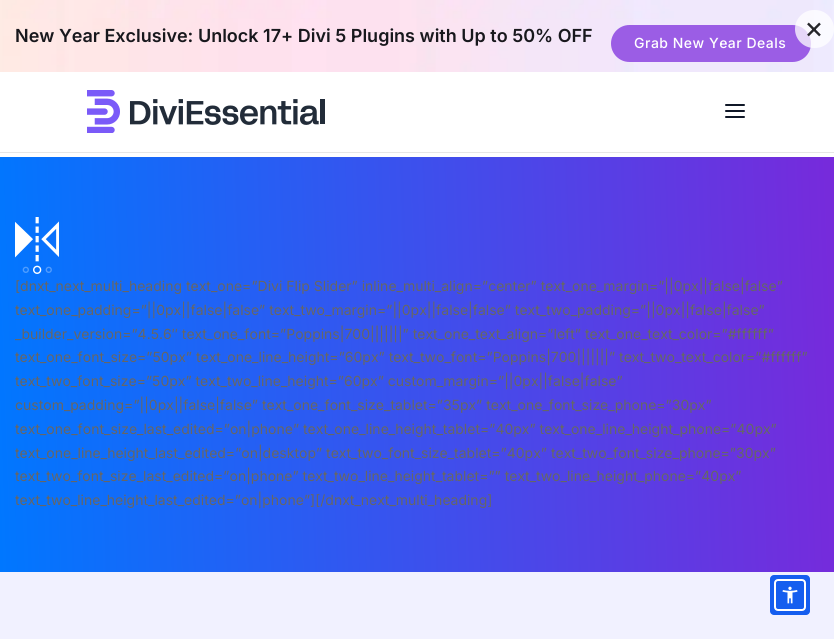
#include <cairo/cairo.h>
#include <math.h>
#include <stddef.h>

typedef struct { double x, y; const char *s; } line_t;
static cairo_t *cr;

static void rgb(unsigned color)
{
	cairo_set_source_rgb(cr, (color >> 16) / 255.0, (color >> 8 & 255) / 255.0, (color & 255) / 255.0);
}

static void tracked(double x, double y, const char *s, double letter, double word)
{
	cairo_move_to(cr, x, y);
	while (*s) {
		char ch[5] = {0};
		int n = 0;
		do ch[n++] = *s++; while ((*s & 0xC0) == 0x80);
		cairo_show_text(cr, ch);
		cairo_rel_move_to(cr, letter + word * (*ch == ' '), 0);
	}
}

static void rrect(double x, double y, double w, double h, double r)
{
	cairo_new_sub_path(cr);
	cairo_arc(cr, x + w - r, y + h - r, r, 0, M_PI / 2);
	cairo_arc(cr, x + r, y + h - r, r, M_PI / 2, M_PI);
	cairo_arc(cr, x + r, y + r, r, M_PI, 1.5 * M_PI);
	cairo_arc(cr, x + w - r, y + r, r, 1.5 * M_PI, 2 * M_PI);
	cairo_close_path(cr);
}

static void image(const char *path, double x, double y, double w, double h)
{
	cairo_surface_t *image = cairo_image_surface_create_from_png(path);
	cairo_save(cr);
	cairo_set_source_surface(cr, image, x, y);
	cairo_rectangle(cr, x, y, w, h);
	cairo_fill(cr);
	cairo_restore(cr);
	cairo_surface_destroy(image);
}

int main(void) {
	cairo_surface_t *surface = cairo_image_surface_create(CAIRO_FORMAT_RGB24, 834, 639);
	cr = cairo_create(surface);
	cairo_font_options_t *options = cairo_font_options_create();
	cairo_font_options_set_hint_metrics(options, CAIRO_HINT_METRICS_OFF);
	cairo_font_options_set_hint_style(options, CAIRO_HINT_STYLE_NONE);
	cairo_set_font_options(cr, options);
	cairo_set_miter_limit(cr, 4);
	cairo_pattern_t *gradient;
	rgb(0xffffff);
	cairo_paint(cr);
	image("img/2.png", 833, 0, 1, 72);
	image("img/1.png", 0, 0, 834, 72);
	rgb(0x9b5de5);
	rrect(611, 25, 200, 37, 18.5);
	cairo_fill(cr);
	cairo_set_source_rgba(cr, 1, 1, 1, 0.75);
	rrect(795, 10, 39, 38, 19);
	cairo_fill(cr);
	rgb(0xe6e6e6);
	cairo_rectangle(cr, 0, 152, 834, 1);
	cairo_fill(cr);
	image("img/3.png", 87, 90, 238, 43);
	image("img/4.png", 725, 104, 20, 14);
	gradient = cairo_pattern_create_linear(-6.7, 379, 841, 350);
	cairo_pattern_add_color_stop_rgba(gradient, 0, 0, 0.467, 1, 1);
	cairo_pattern_add_color_stop_rgba(gradient, 1, 0.467, 0.165, 0.859, 1);
	cairo_set_source(cr, gradient);
	cairo_pattern_destroy(gradient);
	cairo_rectangle(cr, 0, 157, 834, 415);
	cairo_fill(cr);
	image("img/5.png", 15, 217, 44, 57);
	rgb(0xf1f1ff);
	cairo_rectangle(cr, 0, 572, 834, 67);
	cairo_fill(cr);
	rgb(0x155eef);
	rrect(770, 575, 40, 40, 4);
	cairo_fill(cr);
	rrect(775, 580, 30, 30, 3);
	rgb(0xffffff);
	cairo_stroke(cr);
	image("img/6.png", 782, 586, 16, 18);
	cairo_select_font_face(cr, "Inter SemiBold", CAIRO_FONT_SLANT_NORMAL, CAIRO_FONT_WEIGHT_NORMAL);
	cairo_set_font_size(cr, 18);
	rgb(0x18181d);
	cairo_move_to(cr, 15, 42);
	cairo_show_text(cr, "New Year Exclusive: Unlock 17+ Divi 5 Plugins with Up to 50% OFF");
	cairo_select_font_face(cr, "Inter Medium", CAIRO_FONT_SLANT_NORMAL, CAIRO_FONT_WEIGHT_NORMAL);
	cairo_set_font_size(cr, 14);
	rgb(0xffffff);
	tracked(634, 48, "Grab New Year Deals", 0.5, 0);
	cairo_select_font_face(cr, "Inter", CAIRO_FONT_SLANT_NORMAL, CAIRO_FONT_WEIGHT_NORMAL);
	cairo_set_font_size(cr, 30);
	rgb(0x27272a);
	cairo_move_to(cr, 804, 38);
	cairo_show_text(cr, "×");
	cairo_set_font_size(cr, 14);
	rgb(0x666666);
	{
		static const line_t items[] = {
			{15, 291, "[dnxt_next_multi_heading text_one=”Divi Flip Slider” inline_multi_align=”center” text_one_margin=”||0px||false|false”"},
			{15, 315, "text_one_padding=”||0px||false|false” text_two_margin=”||0px||false|false” text_two_padding=”||0px||false|false”"},
			{15, 339, "_builder_version=”4.5.6″ text_one_font=”Poppins|700|||||||” text_one_text_align=”left” text_one_text_color=”#ffffff”"},
			{15, 362, "text_one_font_size=”50px” text_one_line_height=”60px” text_two_font=”Poppins|700|||||||” text_two_text_color=”#ffffff”"},
			{15, 386, "text_two_font_size=”50px” text_two_line_height=”60px” custom_margin=”||0px||false|false”"},
			{15, 410, "custom_padding=”||0px||false|false” text_one_font_size_tablet=”35px” text_one_font_size_phone=”30px”"},
			{15, 434, "text_one_font_size_last_edited=”on|phone” text_one_line_height_tablet=”40px” text_one_line_height_phone=”40px”"},
			{15, 458, "text_one_line_height_last_edited=”on|desktop” text_two_font_size_tablet=”40px” text_two_font_size_phone=”30px”"},
			{15, 481, "text_two_font_size_last_edited=”on|phone” text_two_line_height_tablet=”” text_two_line_height_phone=”40px”"},
			{15, 505, "text_two_line_height_last_edited=”on|phone”][/dnxt_next_multi_heading]"},
		};
		for (size_t i = 0; i < sizeof items / sizeof *items; i++) {
			cairo_move_to(cr, items[i].x, items[i].y);
			cairo_show_text(cr, items[i].s);
		}
	}
	cairo_surface_write_to_png(surface, "page.png");
	cairo_font_options_destroy(options);
	cairo_destroy(cr);
	cairo_surface_destroy(surface);
	return 0;
}
